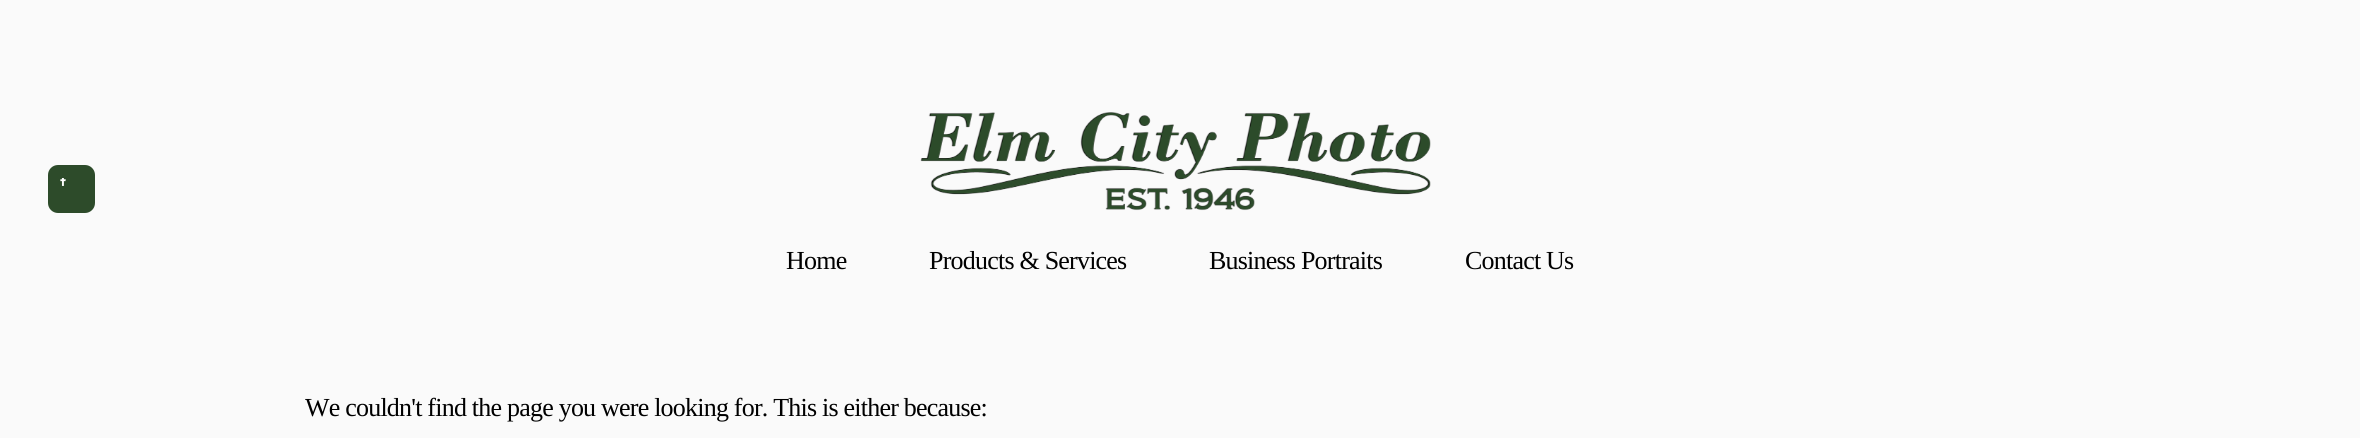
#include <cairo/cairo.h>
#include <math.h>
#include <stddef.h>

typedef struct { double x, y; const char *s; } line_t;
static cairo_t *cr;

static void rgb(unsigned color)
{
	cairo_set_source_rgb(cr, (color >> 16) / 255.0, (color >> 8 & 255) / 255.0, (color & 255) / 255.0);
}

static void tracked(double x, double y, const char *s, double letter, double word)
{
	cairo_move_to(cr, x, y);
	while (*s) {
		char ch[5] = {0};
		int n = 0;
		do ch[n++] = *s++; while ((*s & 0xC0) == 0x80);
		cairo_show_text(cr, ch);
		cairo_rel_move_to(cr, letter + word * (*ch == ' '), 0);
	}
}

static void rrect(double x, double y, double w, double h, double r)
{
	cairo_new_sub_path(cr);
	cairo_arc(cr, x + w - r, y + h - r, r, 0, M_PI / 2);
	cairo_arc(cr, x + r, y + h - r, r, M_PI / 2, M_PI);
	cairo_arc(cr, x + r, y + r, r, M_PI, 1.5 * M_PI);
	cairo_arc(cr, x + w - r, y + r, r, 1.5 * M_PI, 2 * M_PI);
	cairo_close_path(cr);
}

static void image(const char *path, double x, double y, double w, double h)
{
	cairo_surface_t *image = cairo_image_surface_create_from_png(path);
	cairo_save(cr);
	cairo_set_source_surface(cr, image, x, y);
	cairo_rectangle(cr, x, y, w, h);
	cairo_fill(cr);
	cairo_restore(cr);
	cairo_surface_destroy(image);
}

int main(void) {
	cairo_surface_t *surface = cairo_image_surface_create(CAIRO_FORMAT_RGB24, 2360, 438);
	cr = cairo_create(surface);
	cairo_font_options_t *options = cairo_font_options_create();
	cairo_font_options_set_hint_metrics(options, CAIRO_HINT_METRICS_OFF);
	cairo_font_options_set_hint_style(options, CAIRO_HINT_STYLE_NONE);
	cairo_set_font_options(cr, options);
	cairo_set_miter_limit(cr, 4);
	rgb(0xfafafa);
	cairo_paint(cr);
	rgb(0x2d4b2a);
	rrect(48, 165, 47, 48, 10);
	cairo_fill(cr);
	image("img/1.png", 60, 178, 6, 8);
	image("img/2.png", 920, 112, 511, 99);
	cairo_select_font_face(cr, "Liberation Serif", CAIRO_FONT_SLANT_NORMAL, CAIRO_FONT_WEIGHT_NORMAL);
	cairo_set_font_size(cr, 26);
	rgb(0x000000);
	{
		static const line_t items[] = {
			{786, 269, "Home"},
			{929, 269, "Products & Services"},
			{1209, 269, "Business Portraits"},
			{1465, 269, "Contact Us"},
			{305, 416, "We couldn't find the page you were looking for. This is either because:"},
		};
		for (size_t i = 0; i < sizeof items / sizeof *items; i++) {
			tracked(items[i].x, items[i].y, items[i].s, -0.78, 0);
		}
	}
	cairo_surface_write_to_png(surface, "page.png");
	cairo_font_options_destroy(options);
	cairo_destroy(cr);
	cairo_surface_destroy(surface);
	return 0;
}
